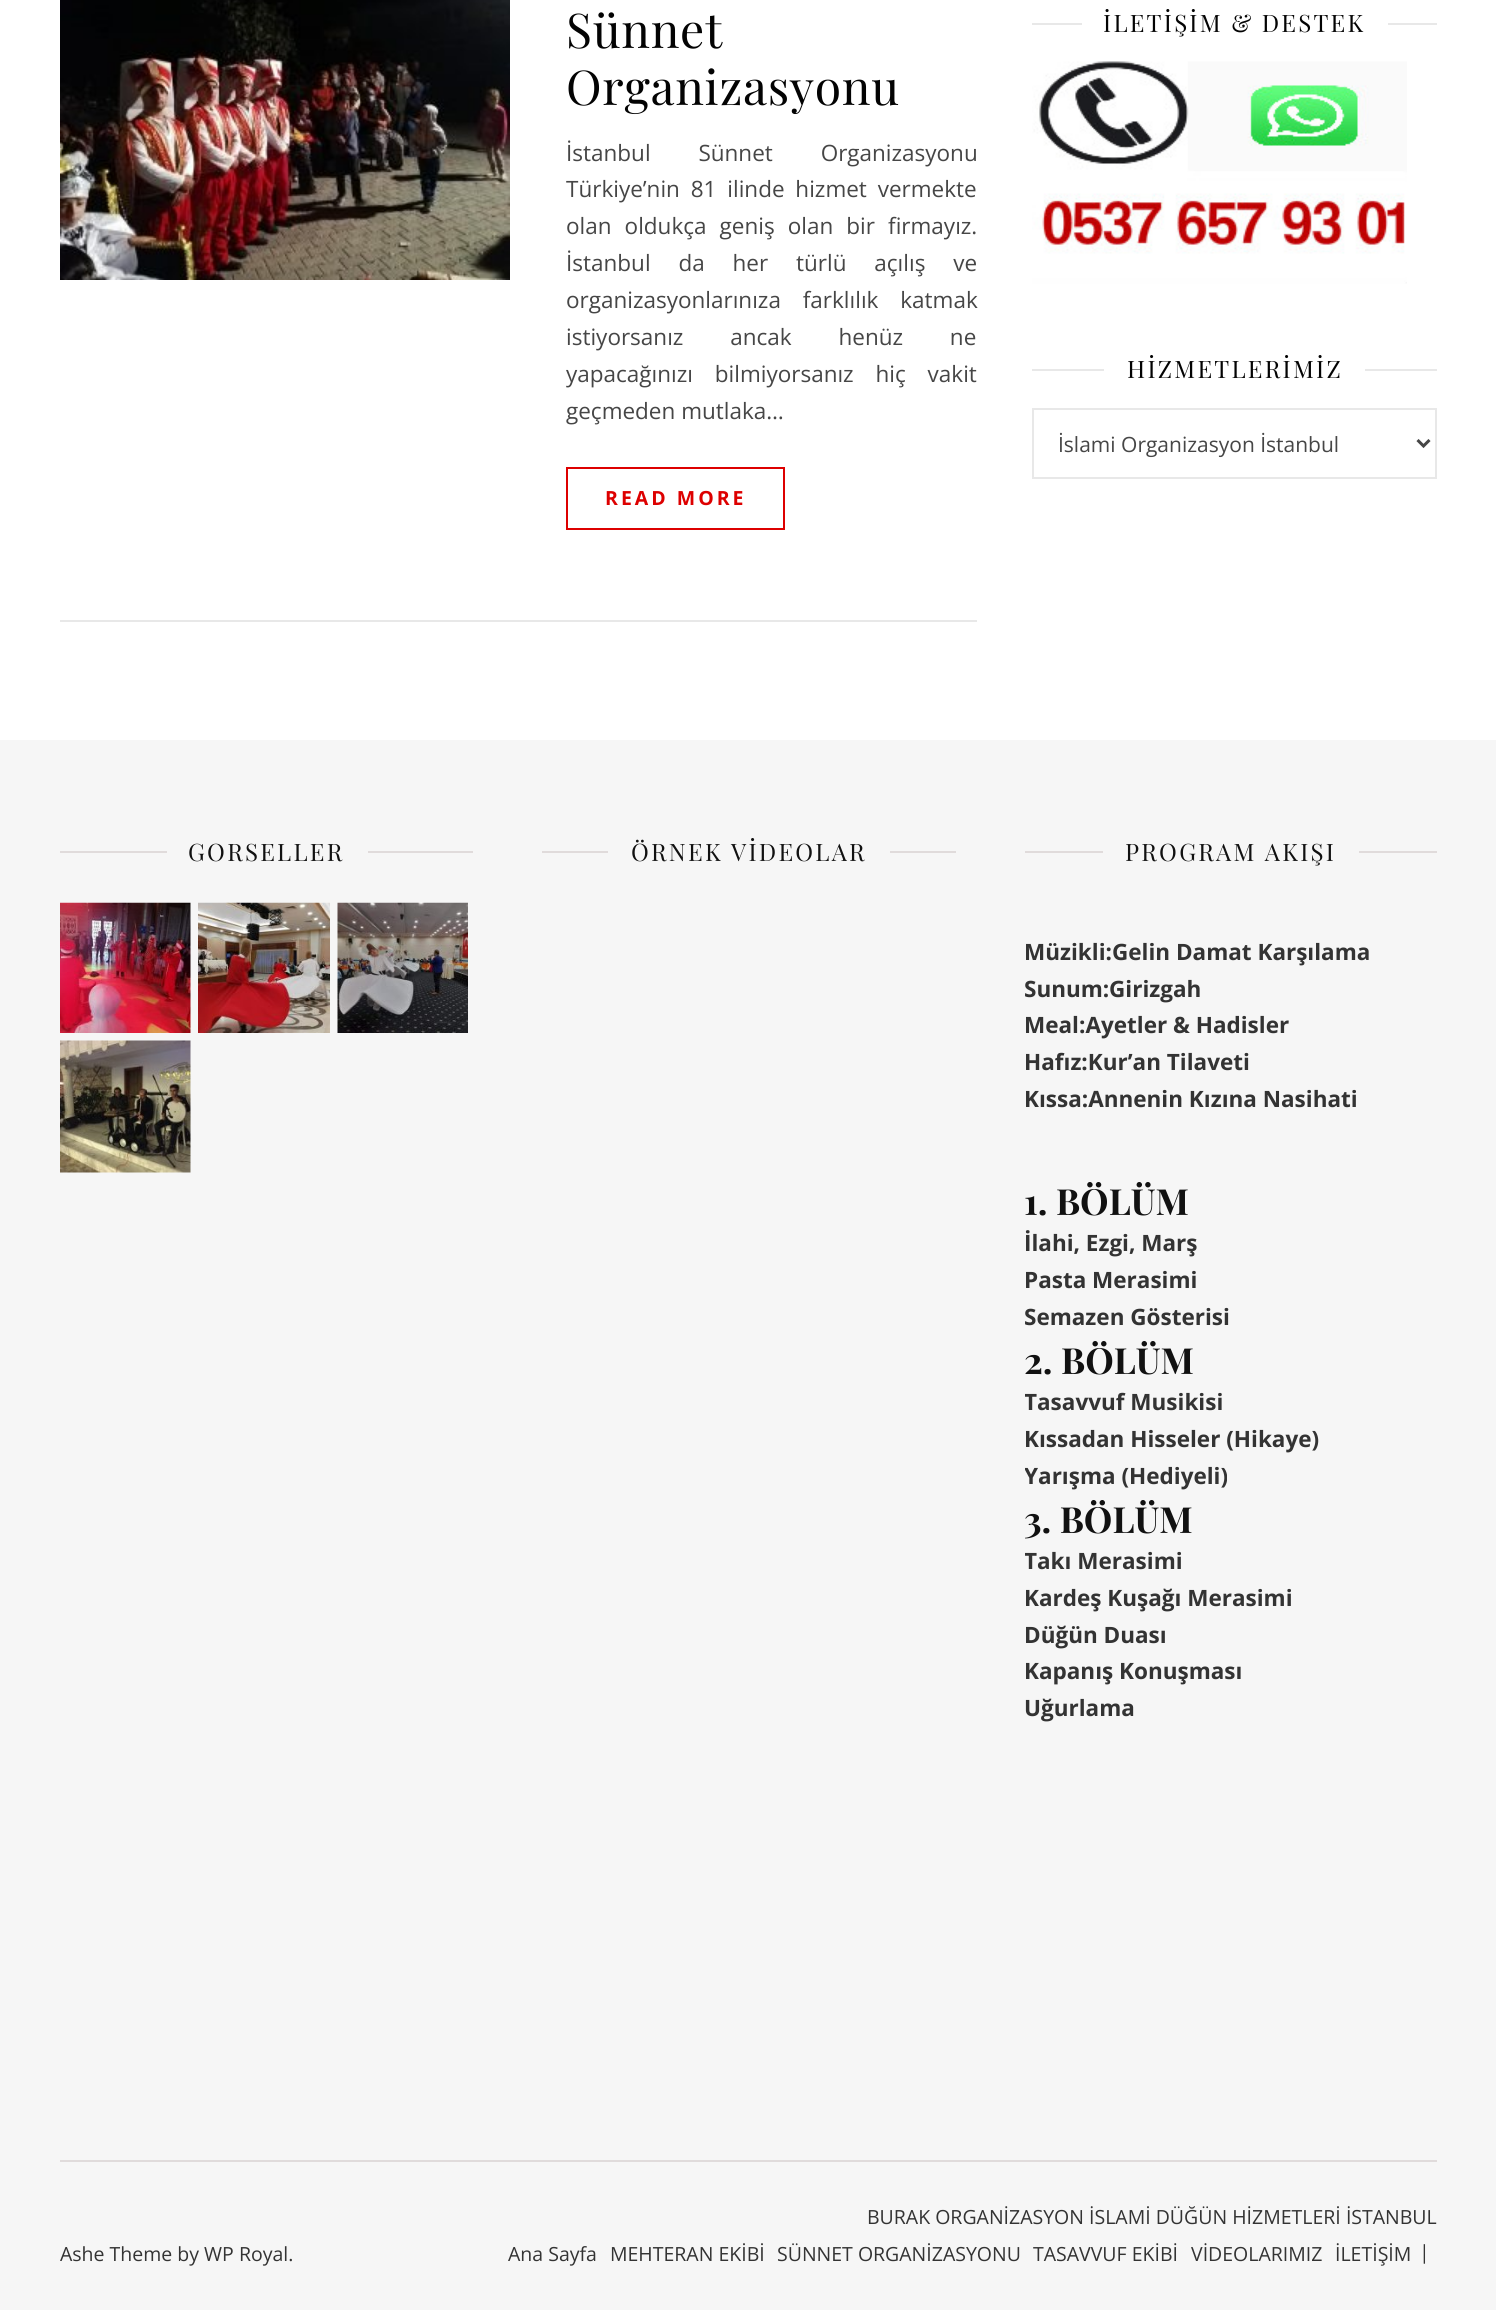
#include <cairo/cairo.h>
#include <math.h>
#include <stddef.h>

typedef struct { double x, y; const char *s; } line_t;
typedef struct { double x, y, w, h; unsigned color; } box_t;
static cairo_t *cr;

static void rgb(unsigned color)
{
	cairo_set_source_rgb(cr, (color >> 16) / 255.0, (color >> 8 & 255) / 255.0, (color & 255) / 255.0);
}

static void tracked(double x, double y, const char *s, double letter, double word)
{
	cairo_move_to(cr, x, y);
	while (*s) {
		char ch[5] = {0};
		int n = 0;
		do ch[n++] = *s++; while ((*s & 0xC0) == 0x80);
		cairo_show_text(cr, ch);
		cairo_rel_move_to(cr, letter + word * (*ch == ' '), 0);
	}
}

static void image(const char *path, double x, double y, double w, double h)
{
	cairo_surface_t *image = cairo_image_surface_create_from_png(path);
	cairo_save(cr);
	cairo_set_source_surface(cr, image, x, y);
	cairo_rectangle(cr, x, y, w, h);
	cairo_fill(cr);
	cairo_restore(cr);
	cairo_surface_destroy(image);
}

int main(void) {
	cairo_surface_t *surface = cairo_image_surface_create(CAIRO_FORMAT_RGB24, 1496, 2310);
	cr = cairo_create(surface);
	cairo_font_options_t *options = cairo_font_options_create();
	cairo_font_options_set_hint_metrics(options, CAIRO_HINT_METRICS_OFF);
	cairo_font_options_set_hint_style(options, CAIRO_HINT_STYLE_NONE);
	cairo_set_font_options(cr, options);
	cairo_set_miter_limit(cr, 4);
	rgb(0xffffff);
	cairo_paint(cr);
	rgb(0xe8e8e8);
	cairo_rectangle(cr, 60, 620, 917, 2);
	cairo_fill(cr);
	image("img/1.png", 60, 0, 450, 280);
	cairo_rectangle(cr, 567, 468, 217, 61);
	rgb(0xdd0000);
	cairo_stroke(cr);
	rgb(0xe8e8e8);
	cairo_rectangle(cr, 1032, 23, 50, 2);
	cairo_fill(cr);
	cairo_rectangle(cr, 1388, 23, 49, 2);
	cairo_fill(cr);
	image("img/2.png", 1032, 61, 375, 223);
	cairo_rectangle(cr, 1032, 369, 72, 2);
	cairo_fill(cr);
	cairo_rectangle(cr, 1365, 369, 72, 2);
	cairo_fill(cr);
	cairo_rectangle(cr, 1033, 409, 403, 69);
	cairo_stroke(cr);
	cairo_new_path(cr);
	cairo_move_to(cr, 1417.5, 440);
	cairo_line_to(cr, 1423.5, 446);
	cairo_line_to(cr, 1429.5, 440);
	rgb(0x464646);
	cairo_set_line_width(cr, 3);
	cairo_stroke(cr);
	{
		static const box_t items[] = {
			{0, 740, 1496, 1570, 0xf6f6f6},
			{60, 2160, 1377, 2, 0xe0dbdb},
			{60, 851, 107, 2, 0xe0dbdb},
			{368, 851, 105, 2, 0xe0dbdb},
		};
		for (size_t i = 0; i < sizeof items / sizeof *items; i++) {
			rgb(items[i].color);
			cairo_rectangle(cr, items[i].x, items[i].y, items[i].w, items[i].h);
			cairo_fill(cr);
		}
	}
	image("img/3.png", 60, 902, 131, 131);
	image("img/4.png", 198, 902, 132, 131);
	image("img/5.png", 337, 902, 131, 131);
	image("img/6.png", 60, 1040, 131, 133);
	{
		static const box_t items[] = {
			{542, 851, 66, 2, 0xe0dbdb},
			{890, 851, 66, 2, 0xe0dbdb},
			{1025, 851, 78, 2, 0xe0dbdb},
			{1359, 851, 78, 2, 0xe0dbdb},
		};
		for (size_t i = 0; i < sizeof items / sizeof *items; i++) {
			rgb(items[i].color);
			cairo_rectangle(cr, items[i].x, items[i].y, items[i].w, items[i].h);
			cairo_fill(cr);
		}
	}
	cairo_select_font_face(cr, "Playfair Display", CAIRO_FONT_SLANT_NORMAL, CAIRO_FONT_WEIGHT_NORMAL);
	cairo_set_font_size(cr, 48);
	rgb(0x030303);
	tracked(566, 48, "Sünnet", 0.75, 0);
	tracked(566, 105, "Organizasyonu", 0.75, 0);
	cairo_select_font_face(cr, "Open Sans", CAIRO_FONT_SLANT_NORMAL, CAIRO_FONT_WEIGHT_NORMAL);
	cairo_set_font_size(cr, 22.5);
	rgb(0x464646);
	tracked(566, 161, "İstanbul Sünnet Organizasyonu", 0, 42);
	tracked(566, 197, "Türkiye’nin 81 ilinde hizmet vermekte", 0, 5);
	tracked(566, 234, "olan oldukça geniş olan bir firmayız.", 0, 7.25);
	tracked(566, 271, "İstanbul da her türlü açılış ve", 0, 22);
	tracked(566, 308, "organizasyonlarınıza farklılık katmak", 0, 16);
	tracked(566, 345, "istiyorsanız ancak henüz ne", 0, 41);
	cairo_save(cr);
	cairo_rectangle(cr, 566, 134, 411, 318);
	cairo_clip(cr);
	tracked(566, 382, "yapacağınızı bilmiyorsanız hiç vakit", 0, 16);
	cairo_restore(cr);
	cairo_move_to(cr, 566, 419);
	cairo_show_text(cr, "geçmeden mutlaka…");
	cairo_select_font_face(cr, "Open Sans", CAIRO_FONT_SLANT_NORMAL, CAIRO_FONT_WEIGHT_BOLD);
	cairo_set_font_size(cr, 19.5);
	rgb(0xdd0000);
	tracked(605, 505, "READ MORE", 3, 0);
	cairo_select_font_face(cr, "Playfair Display", CAIRO_FONT_SLANT_NORMAL, CAIRO_FONT_WEIGHT_NORMAL);
	cairo_set_font_size(cr, 24);
	rgb(0x030303);
	tracked(1103, 32, "İLETİŞİM & DESTEK", 2.25, 0);
	tracked(1127, 378, "HİZMETLERİMİZ", 2.25, 0);
	cairo_select_font_face(cr, "Open Sans", CAIRO_FONT_SLANT_NORMAL, CAIRO_FONT_WEIGHT_NORMAL);
	cairo_set_font_size(cr, 21);
	rgb(0x464646);
	cairo_move_to(cr, 1058, 452);
	cairo_show_text(cr, "İslami Organizasyon İstanbul");
	cairo_select_font_face(cr, "Playfair Display", CAIRO_FONT_SLANT_NORMAL, CAIRO_FONT_WEIGHT_NORMAL);
	cairo_set_font_size(cr, 24);
	rgb(0x111111);
	{
		static const line_t items[] = {
			{188, 861, "GORSELLER"},
			{631, 861, "ÖRNEK VİDEOLAR"},
			{1125, 861, "PROGRAM AKIŞI"},
		};
		for (size_t i = 0; i < sizeof items / sizeof *items; i++) {
			tracked(items[i].x, items[i].y, items[i].s, 2.25, 0);
		}
	}
	cairo_select_font_face(cr, "Open Sans", CAIRO_FONT_SLANT_NORMAL, CAIRO_FONT_WEIGHT_BOLD);
	cairo_set_font_size(cr, 22.5);
	rgb(0x333333);
	cairo_move_to(cr, 1024, 960);
	cairo_show_text(cr, "Müzikli:Gelin Damat Karşılama");
	cairo_save(cr);
	cairo_rectangle(cr, 1025, 830, 412, 897);
	cairo_clip(cr);
	cairo_move_to(cr, 1024, 997);
	cairo_show_text(cr, "Sunum:");
	cairo_restore(cr);
	{
		static const line_t items[] = {
			{1109, 997, "Girizgah"},
			{1024, 1033, "Meal:Ayetler & Hadisler"},
			{1024, 1070, "Hafız:Kur’an Tilaveti"},
			{1024, 1107, "Kıssa:Annenin Kızına Nasihati"},
		};
		for (size_t i = 0; i < sizeof items / sizeof *items; i++) {
			cairo_move_to(cr, items[i].x, items[i].y);
			cairo_show_text(cr, items[i].s);
		}
	}
	cairo_select_font_face(cr, "Playfair Display", CAIRO_FONT_SLANT_NORMAL, CAIRO_FONT_WEIGHT_BOLD);
	cairo_set_font_size(cr, 36);
	rgb(0x111111);
	cairo_move_to(cr, 1024, 1215);
	cairo_show_text(cr, "1. BÖLÜM");
	cairo_select_font_face(cr, "Open Sans", CAIRO_FONT_SLANT_NORMAL, CAIRO_FONT_WEIGHT_BOLD);
	cairo_set_font_size(cr, 22.5);
	rgb(0x333333);
	cairo_move_to(cr, 1024, 1251);
	cairo_show_text(cr, "İlahi, Ezgi, Marş");
	cairo_move_to(cr, 1024, 1288);
	cairo_show_text(cr, "Pasta Merasimi");
	cairo_save(cr);
	cairo_rectangle(cr, 1025, 830, 412, 897);
	cairo_clip(cr);
	cairo_move_to(cr, 1024, 1325);
	cairo_show_text(cr, "Semazen Gösterisi");
	cairo_restore(cr);
	cairo_select_font_face(cr, "Playfair Display", CAIRO_FONT_SLANT_NORMAL, CAIRO_FONT_WEIGHT_BOLD);
	cairo_set_font_size(cr, 36);
	rgb(0x111111);
	cairo_move_to(cr, 1024, 1374);
	cairo_show_text(cr, "2. BÖLÜM");
	cairo_save(cr);
	cairo_rectangle(cr, 1025, 830, 412, 897);
	cairo_clip(cr);
	cairo_select_font_face(cr, "Open Sans", CAIRO_FONT_SLANT_NORMAL, CAIRO_FONT_WEIGHT_BOLD);
	cairo_set_font_size(cr, 22.5);
	rgb(0x333333);
	cairo_move_to(cr, 1024, 1410);
	cairo_show_text(cr, "Tasavvuf Musikisi");
	cairo_restore(cr);
	cairo_select_font_face(cr, "Open Sans", CAIRO_FONT_SLANT_NORMAL, CAIRO_FONT_WEIGHT_BOLD);
	cairo_set_font_size(cr, 22.5);
	rgb(0x333333);
	cairo_move_to(cr, 1024, 1447);
	cairo_show_text(cr, "Kıssadan Hisseler (Hikaye)");
	cairo_save(cr);
	cairo_rectangle(cr, 1025, 830, 412, 897);
	cairo_clip(cr);
	cairo_move_to(cr, 1024, 1484);
	cairo_show_text(cr, "Yarışma (Hediyeli)");
	cairo_restore(cr);
	cairo_select_font_face(cr, "Playfair Display", CAIRO_FONT_SLANT_NORMAL, CAIRO_FONT_WEIGHT_BOLD);
	cairo_set_font_size(cr, 36);
	rgb(0x111111);
	cairo_move_to(cr, 1024, 1533);
	cairo_show_text(cr, "3. BÖLÜM");
	cairo_save(cr);
	cairo_rectangle(cr, 1025, 830, 412, 897);
	cairo_clip(cr);
	cairo_select_font_face(cr, "Open Sans", CAIRO_FONT_SLANT_NORMAL, CAIRO_FONT_WEIGHT_BOLD);
	cairo_set_font_size(cr, 22.5);
	rgb(0x333333);
	cairo_move_to(cr, 1024, 1569);
	cairo_show_text(cr, "Takı Merasimi");
	cairo_restore(cr);
	cairo_select_font_face(cr, "Open Sans", CAIRO_FONT_SLANT_NORMAL, CAIRO_FONT_WEIGHT_BOLD);
	cairo_set_font_size(cr, 22.5);
	rgb(0x333333);
	{
		static const line_t items[] = {
			{1024, 1606, "Kardeş Kuşağı Merasimi"},
			{1024, 1643, "Düğün Duası"},
			{1024, 1679, "Kapanış Konuşması"},
			{1024, 1716, "Uğurlama"},
		};
		for (size_t i = 0; i < sizeof items / sizeof *items; i++) {
			cairo_move_to(cr, items[i].x, items[i].y);
			cairo_show_text(cr, items[i].s);
		}
	}
	cairo_select_font_face(cr, "Open Sans", CAIRO_FONT_SLANT_NORMAL, CAIRO_FONT_WEIGHT_NORMAL);
	cairo_set_font_size(cr, 19.5);
	{
		static const line_t items[] = {
			{867, 2224, "BURAK ORGANİZASYON İSLAMİ DÜĞÜN HİZMETLERİ İSTANBUL"},
			{60, 2261, "Ashe Theme by WP Royal."},
			{508, 2261, "Ana Sayfa"},
			{610, 2261, "MEHTERAN EKİBİ"},
			{777, 2261, "SÜNNET ORGANİZASYONU"},
			{1033, 2261, "TASAVVUF EKİBİ"},
			{1191, 2261, "VİDEOLARIMIZ"},
			{1335, 2261, "İLETİŞİM"},
			{1419, 2259, "|"},
		};
		for (size_t i = 0; i < sizeof items / sizeof *items; i++) {
			cairo_move_to(cr, items[i].x, items[i].y);
			cairo_show_text(cr, items[i].s);
		}
	}
	cairo_surface_write_to_png(surface, "page.png");
	cairo_font_options_destroy(options);
	cairo_destroy(cr);
	cairo_surface_destroy(surface);
	return 0;
}
